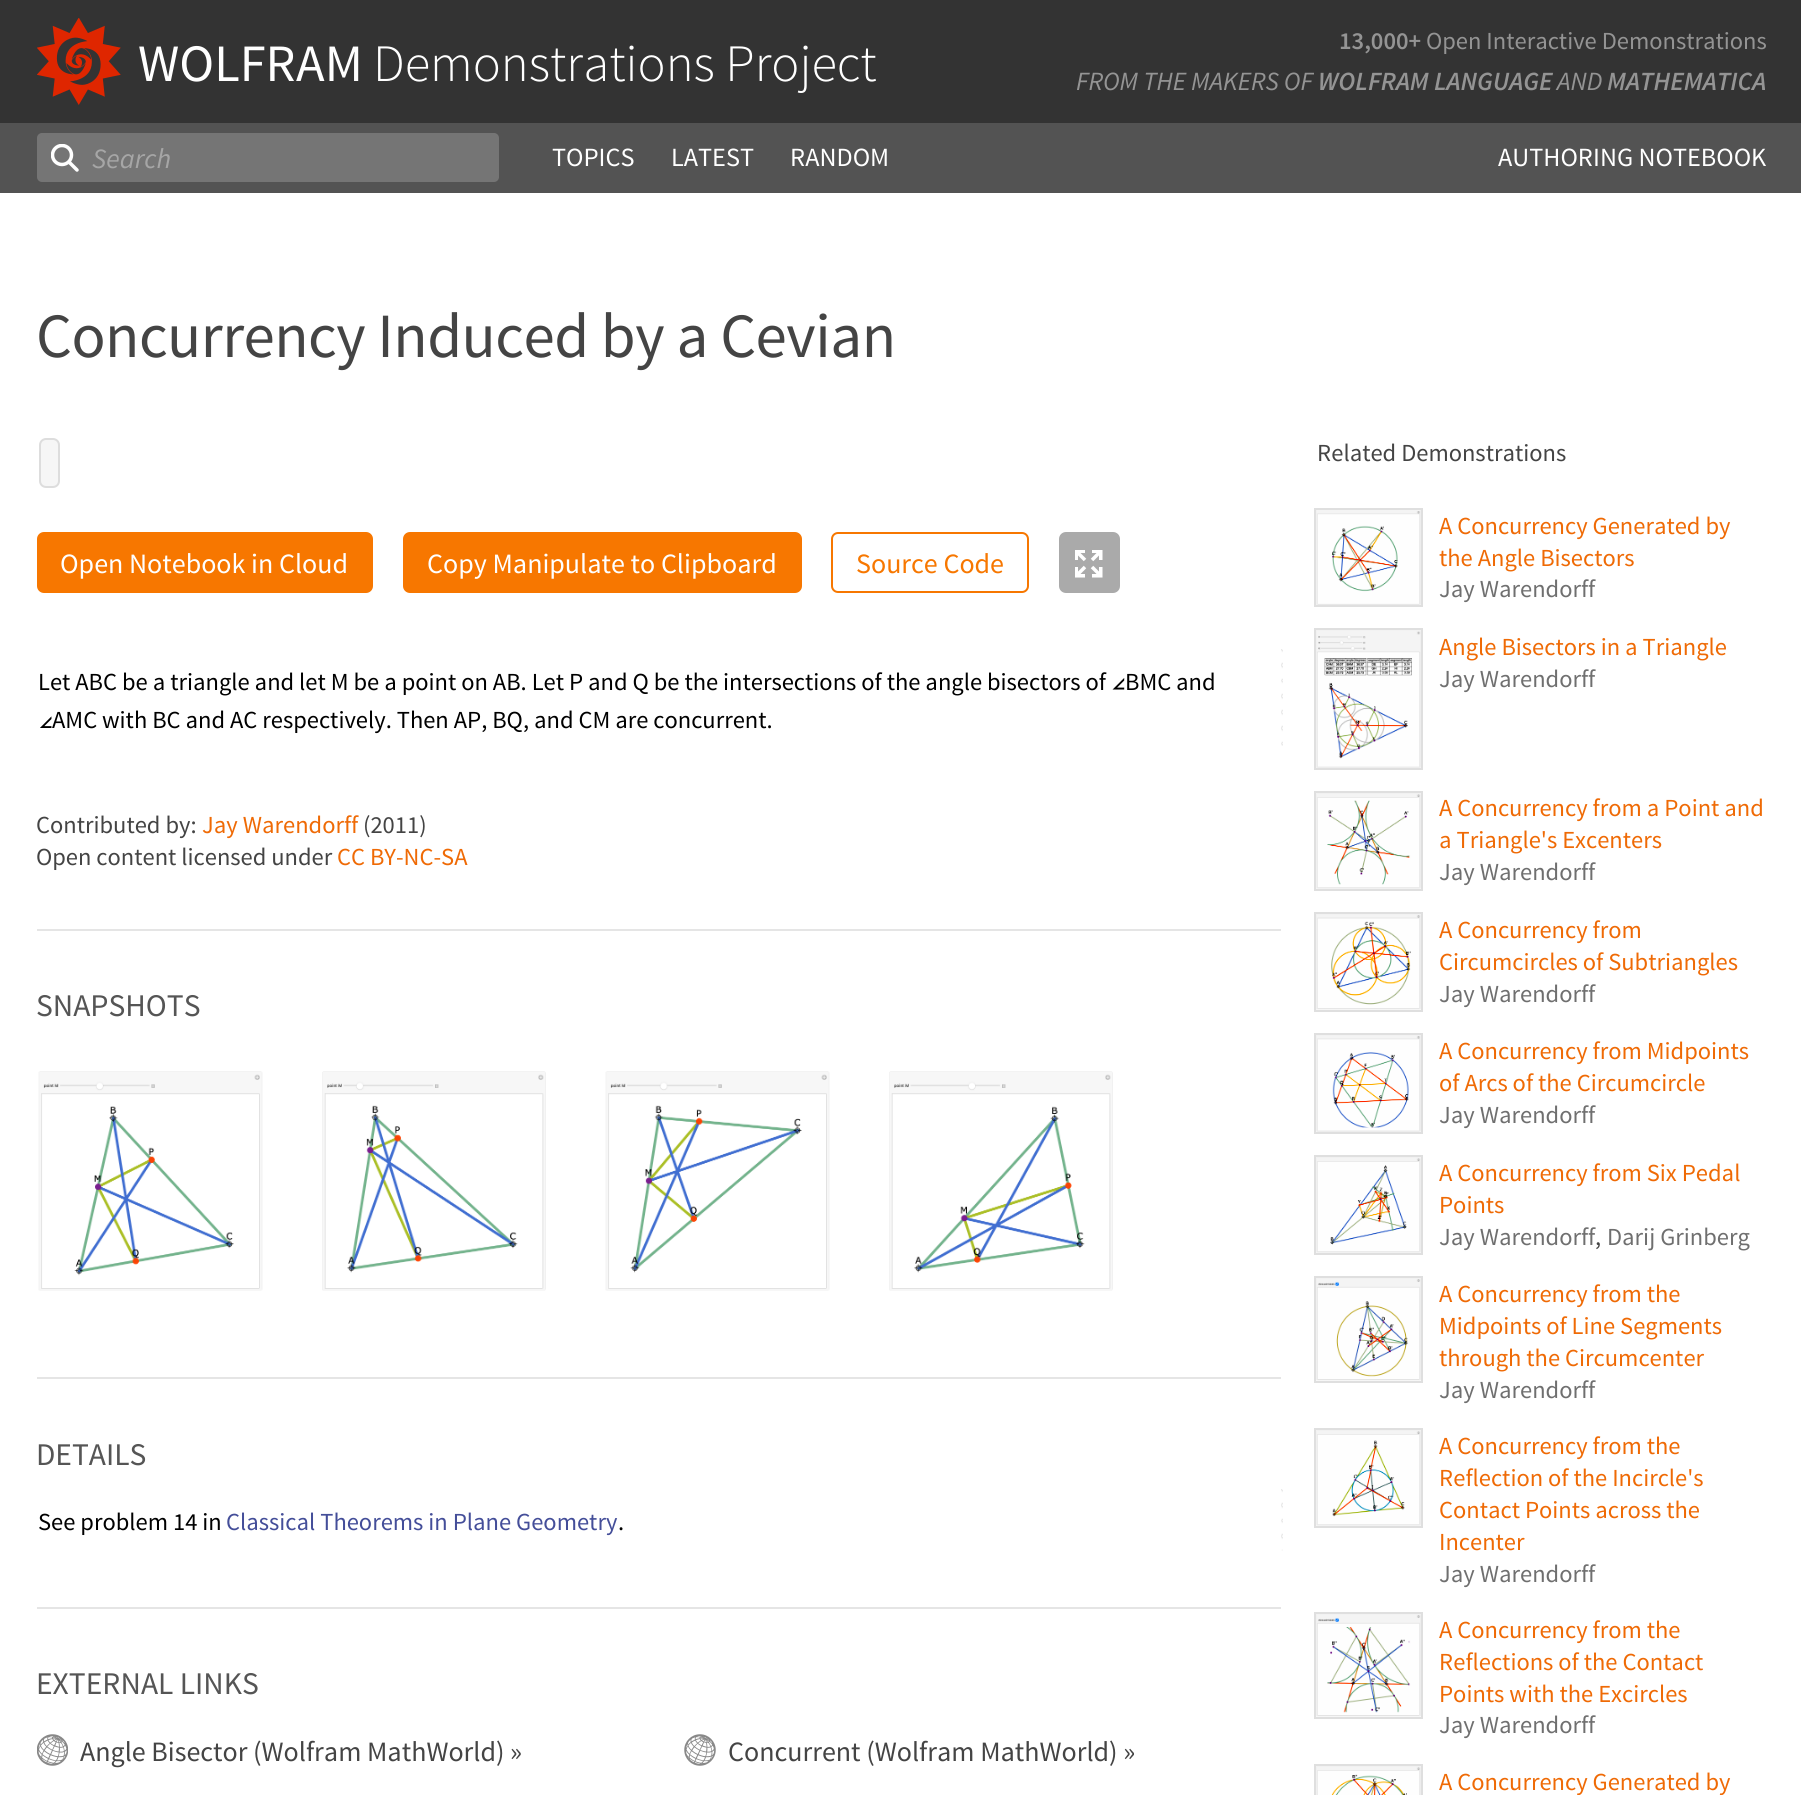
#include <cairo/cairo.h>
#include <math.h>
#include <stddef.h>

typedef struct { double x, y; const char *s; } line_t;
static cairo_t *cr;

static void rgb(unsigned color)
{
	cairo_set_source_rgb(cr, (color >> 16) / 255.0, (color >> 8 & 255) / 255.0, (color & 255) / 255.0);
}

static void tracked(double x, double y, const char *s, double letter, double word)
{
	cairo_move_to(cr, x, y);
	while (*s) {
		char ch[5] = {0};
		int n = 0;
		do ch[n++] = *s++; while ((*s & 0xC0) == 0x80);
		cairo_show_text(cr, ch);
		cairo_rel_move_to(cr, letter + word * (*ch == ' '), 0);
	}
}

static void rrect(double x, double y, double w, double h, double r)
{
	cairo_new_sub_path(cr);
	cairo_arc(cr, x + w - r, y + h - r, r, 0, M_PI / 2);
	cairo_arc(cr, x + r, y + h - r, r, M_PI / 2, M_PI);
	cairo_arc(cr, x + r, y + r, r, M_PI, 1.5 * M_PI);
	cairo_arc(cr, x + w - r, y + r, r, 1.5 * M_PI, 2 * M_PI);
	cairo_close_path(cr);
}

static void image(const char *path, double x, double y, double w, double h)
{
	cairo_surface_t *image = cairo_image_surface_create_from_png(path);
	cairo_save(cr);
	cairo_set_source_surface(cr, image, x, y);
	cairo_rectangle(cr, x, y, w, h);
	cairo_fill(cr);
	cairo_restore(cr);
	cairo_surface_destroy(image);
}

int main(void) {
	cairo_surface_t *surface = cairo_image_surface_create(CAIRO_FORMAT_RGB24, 1801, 1795);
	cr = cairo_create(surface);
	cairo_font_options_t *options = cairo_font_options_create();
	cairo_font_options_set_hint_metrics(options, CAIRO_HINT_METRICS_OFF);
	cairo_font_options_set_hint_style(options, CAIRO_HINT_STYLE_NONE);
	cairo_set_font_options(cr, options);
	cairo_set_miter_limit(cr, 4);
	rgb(0xffffff);
	cairo_paint(cr);
	rgb(0x333333);
	cairo_rectangle(cr, 0, 0, 1801, 123);
	cairo_fill(cr);
	image("img/1.png", 37, 18, 84, 87);
	rgb(0x535353);
	cairo_rectangle(cr, 0, 123, 1801, 70);
	cairo_fill(cr);
	rgb(0x757575);
	rrect(37, 133, 462, 49, 5);
	cairo_fill(cr);
	cairo_new_path(cr);
	cairo_move_to(cr, 77, 170);
	cairo_line_to(cr, 70, 163);
	rgb(0xffffff);
	cairo_set_line_width(cr, 3.5);
	cairo_set_line_cap(cr, CAIRO_LINE_CAP_ROUND);
	cairo_stroke(cr);
	cairo_save(cr);
	cairo_rectangle(cr, 51, 144, 28, 28);
	cairo_clip(cr);
	cairo_arc(cr, 62, 155, 9.5, 0, 2 * M_PI);
	cairo_set_line_cap(cr, CAIRO_LINE_CAP_BUTT);
	cairo_stroke(cr);
	cairo_restore(cr);
	rgb(0xf6f6f6);
	rrect(40, 439, 19, 48, 6);
	cairo_fill_preserve(cr);
	rgb(0xdddddd);
	cairo_set_line_width(cr, 2);
	cairo_set_line_cap(cr, CAIRO_LINE_CAP_BUTT);
	cairo_stroke(cr);
	rgb(0xf77700);
	rrect(38, 533, 334, 59, 6);
	cairo_fill_preserve(cr);
	cairo_stroke(cr);
	rrect(404, 533, 397, 59, 6);
	cairo_fill_preserve(cr);
	cairo_stroke(cr);
	rrect(832, 533, 196, 59, 6);
	cairo_stroke(cr);
	rgb(0xaaaaaa);
	rrect(1060, 533, 59, 59, 6);
	cairo_fill_preserve(cr);
	cairo_stroke(cr);
	image("img/2.png", 1075, 550, 28, 28);
	image("img/3.png", 1281, 649, 2, 97);
	image("img/4.png", 1112, 678, 13, 12);
	image("img/5.png", 40, 716, 12, 12);
	rgb(0xe5e5e5);
	cairo_rectangle(cr, 37, 929, 1244, 2);
	cairo_fill(cr);
	image("img/6.png", 38, 1071, 225, 220);
	image("img/7.png", 322, 1071, 224, 220);
	image("img/8.png", 605, 1071, 225, 220);
	image("img/9.png", 889, 1071, 224, 220);
	cairo_rectangle(cr, 37, 1377, 1244, 2);
	cairo_fill(cr);
	image("img/10.png", 1281, 1489, 2, 62);
	cairo_rectangle(cr, 37, 1607, 1244, 2);
	cairo_fill(cr);
	image("img/11.png", 37, 1734, 31, 32);
	image("img/12.png", 684, 1734, 32, 32);
	image("img/13.png", 1316, 510, 105, 95);
	cairo_rectangle(cr, 1315, 509, 107, 97);
	rgb(0xdfdfdf);
	cairo_stroke(cr);
	image("img/14.png", 1316, 630, 105, 138);
	cairo_rectangle(cr, 1315, 629, 107, 140);
	cairo_stroke(cr);
	image("img/15.png", 1316, 793, 105, 96);
	cairo_rectangle(cr, 1315, 792, 107, 98);
	cairo_stroke(cr);
	image("img/16.png", 1316, 914, 105, 96);
	cairo_rectangle(cr, 1315, 913, 107, 98);
	cairo_stroke(cr);
	image("img/17.png", 1316, 1035, 105, 97);
	cairo_rectangle(cr, 1315, 1034, 107, 99);
	cairo_stroke(cr);
	image("img/18.png", 1316, 1157, 105, 96);
	cairo_rectangle(cr, 1315, 1156, 107, 98);
	cairo_stroke(cr);
	image("img/19.png", 1316, 1278, 105, 103);
	cairo_rectangle(cr, 1315, 1277, 107, 105);
	cairo_stroke(cr);
	image("img/20.png", 1316, 1430, 105, 96);
	cairo_rectangle(cr, 1315, 1429, 107, 98);
	cairo_stroke(cr);
	image("img/21.png", 1316, 1614, 105, 103);
	cairo_rectangle(cr, 1315, 1613, 107, 105);
	cairo_stroke(cr);
	image("img/22.png", 1316, 1766, 105, 29);
	cairo_rectangle(cr, 1315, 1765, 107, 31);
	cairo_stroke(cr);
	cairo_select_font_face(cr, "Source Sans Pro", CAIRO_FONT_SLANT_NORMAL, CAIRO_FONT_WEIGHT_NORMAL);
	cairo_set_font_size(cr, 52.5);
	rgb(0xffffff);
	cairo_move_to(cr, 138, 81);
	cairo_show_text(cr, "WOLFRAM");
	cairo_select_font_face(cr, "Source Sans Pro Light", CAIRO_FONT_SLANT_NORMAL, CAIRO_FONT_WEIGHT_NORMAL);
	cairo_move_to(cr, 373, 81);
	cairo_show_text(cr, "Demonstrations Project");
	cairo_select_font_face(cr, "Source Sans Pro SemiBold", CAIRO_FONT_SLANT_NORMAL, CAIRO_FONT_WEIGHT_NORMAL);
	cairo_set_font_size(cr, 24.5);
	rgb(0x949494);
	cairo_move_to(cr, 1339, 49);
	cairo_show_text(cr, "13,000+");
	cairo_select_font_face(cr, "Source Sans Pro", CAIRO_FONT_SLANT_NORMAL, CAIRO_FONT_WEIGHT_NORMAL);
	cairo_move_to(cr, 1426, 49);
	cairo_show_text(cr, "Open Interactive Demonstrations");
	cairo_select_font_face(cr, "Source Sans Pro", CAIRO_FONT_SLANT_ITALIC, CAIRO_FONT_WEIGHT_NORMAL);
	cairo_set_font_size(cr, 26.25);
	cairo_move_to(cr, 1076, 90);
	cairo_show_text(cr, "FROM THE MAKERS OF");
	cairo_select_font_face(cr, "Source Sans Pro SemiBold", CAIRO_FONT_SLANT_ITALIC, CAIRO_FONT_WEIGHT_NORMAL);
	cairo_move_to(cr, 1318, 90);
	cairo_show_text(cr, "WOLFRAM LANGUAGE");
	cairo_select_font_face(cr, "Source Sans Pro", CAIRO_FONT_SLANT_ITALIC, CAIRO_FONT_WEIGHT_NORMAL);
	cairo_move_to(cr, 1557, 90);
	cairo_show_text(cr, "AND");
	cairo_select_font_face(cr, "Source Sans Pro SemiBold", CAIRO_FONT_SLANT_ITALIC, CAIRO_FONT_WEIGHT_NORMAL);
	cairo_move_to(cr, 1607, 90);
	cairo_show_text(cr, "MATHEMATICA");
	cairo_select_font_face(cr, "Source Sans Pro", CAIRO_FONT_SLANT_ITALIC, CAIRO_FONT_WEIGHT_NORMAL);
	cairo_set_font_size(cr, 28);
	rgb(0xa6a6a6);
	cairo_move_to(cr, 92, 168);
	cairo_show_text(cr, "Search");
	cairo_select_font_face(cr, "Source Sans Pro", CAIRO_FONT_SLANT_NORMAL, CAIRO_FONT_WEIGHT_NORMAL);
	cairo_set_font_size(cr, 26.25);
	rgb(0xffffff);
	{
		static const line_t items[] = {
			{552, 166, "TOPICS"},
			{671, 166, "LATEST"},
			{790, 166, "RANDOM"},
			{1498, 166, "AUTHORING NOTEBOOK"},
		};
		for (size_t i = 0; i < sizeof items / sizeof *items; i++) {
			cairo_move_to(cr, items[i].x, items[i].y);
			cairo_show_text(cr, items[i].s);
		}
	}
	cairo_set_font_size(cr, 63);
	rgb(0x444444);
	tracked(36, 357, "Concurrency Induced by a Cevian", -0.55, 0);
	cairo_set_font_size(cr, 28);
	rgb(0xffffff);
	cairo_move_to(cr, 60, 573);
	cairo_show_text(cr, "Open Notebook in Cloud");
	cairo_move_to(cr, 427, 573);
	cairo_show_text(cr, "Copy Manipulate to Clipboard");
	rgb(0xf77700);
	cairo_move_to(cr, 856, 573);
	cairo_show_text(cr, "Source Code");
	cairo_set_font_size(cr, 24.5);
	rgb(0x000000);
	{
		static const line_t items[] = {
			{38, 690, "Let ABC be a triangle and let M be a point on AB. Let P and Q be the intersections of the angle bisectors of"},
			{1125, 690, "BMC"},
			{1176, 690, "and"},
			{52, 728, "AMC"},
			{102, 728, "with BC and AC respectively. Then AP, BQ, and CM are concurrent."},
		};
		for (size_t i = 0; i < sizeof items / sizeof *items; i++) {
			cairo_move_to(cr, items[i].x, items[i].y);
			cairo_show_text(cr, items[i].s);
		}
	}
	rgb(0x444444);
	cairo_move_to(cr, 36, 833);
	cairo_show_text(cr, "Contributed by:");
	rgb(0xef6a05);
	cairo_move_to(cr, 202, 833);
	cairo_show_text(cr, "Jay Warendorff");
	rgb(0x444444);
	cairo_move_to(cr, 363, 833);
	cairo_show_text(cr, "(2011)");
	cairo_move_to(cr, 36, 865);
	cairo_show_text(cr, "Open content licensed under");
	rgb(0xef6a05);
	cairo_move_to(cr, 337, 865);
	cairo_show_text(cr, "CC BY-NC-SA");
	cairo_set_font_size(cr, 31.5);
	rgb(0x555555);
	cairo_move_to(cr, 36, 1016);
	cairo_show_text(cr, "SNAPSHOTS");
	cairo_move_to(cr, 36, 1465);
	cairo_show_text(cr, "DETAILS");
	cairo_set_font_size(cr, 24.5);
	rgb(0x000000);
	cairo_move_to(cr, 38, 1530);
	cairo_show_text(cr, "See problem 14 in");
	rgb(0x444e99);
	cairo_move_to(cr, 226, 1530);
	cairo_show_text(cr, "Classical Theorems in Plane Geometry");
	rgb(0x000000);
	cairo_move_to(cr, 618, 1530);
	cairo_show_text(cr, ".");
	cairo_set_font_size(cr, 31.5);
	rgb(0x555555);
	cairo_move_to(cr, 36, 1694);
	cairo_show_text(cr, "EXTERNAL LINKS");
	cairo_set_font_size(cr, 28);
	rgb(0x444444);
	cairo_move_to(cr, 80, 1761);
	cairo_show_text(cr, "Angle Bisector (Wolfram MathWorld) »");
	cairo_move_to(cr, 728, 1761);
	cairo_show_text(cr, "Concurrent (Wolfram MathWorld) »");
	cairo_set_font_size(cr, 24.5);
	cairo_move_to(cr, 1317, 461);
	cairo_show_text(cr, "Related Demonstrations");
	rgb(0xef6a05);
	cairo_move_to(cr, 1439, 534);
	cairo_show_text(cr, "A Concurrency Generated by");
	cairo_move_to(cr, 1439, 566);
	cairo_show_text(cr, "the Angle Bisectors");
	rgb(0x6f6f6f);
	cairo_move_to(cr, 1439, 597);
	cairo_show_text(cr, "Jay Warendorff");
	rgb(0xef6a05);
	cairo_move_to(cr, 1439, 655);
	cairo_show_text(cr, "Angle Bisectors in a Triangle");
	rgb(0x6f6f6f);
	cairo_move_to(cr, 1439, 687);
	cairo_show_text(cr, "Jay Warendorff");
	rgb(0xef6a05);
	cairo_move_to(cr, 1439, 816);
	cairo_show_text(cr, "A Concurrency from a Point and");
	cairo_move_to(cr, 1439, 848);
	cairo_show_text(cr, "a Triangle's Excenters");
	rgb(0x6f6f6f);
	cairo_move_to(cr, 1439, 880);
	cairo_show_text(cr, "Jay Warendorff");
	rgb(0xef6a05);
	cairo_move_to(cr, 1439, 938);
	cairo_show_text(cr, "A Concurrency from");
	cairo_move_to(cr, 1439, 970);
	cairo_show_text(cr, "Circumcircles of Subtriangles");
	rgb(0x6f6f6f);
	cairo_move_to(cr, 1439, 1002);
	cairo_show_text(cr, "Jay Warendorff");
	rgb(0xef6a05);
	cairo_move_to(cr, 1439, 1059);
	cairo_show_text(cr, "A Concurrency from Midpoints");
	cairo_move_to(cr, 1439, 1091);
	cairo_show_text(cr, "of Arcs of the Circumcircle");
	rgb(0x6f6f6f);
	cairo_move_to(cr, 1439, 1123);
	cairo_show_text(cr, "Jay Warendorff");
	rgb(0xef6a05);
	cairo_move_to(cr, 1439, 1181);
	cairo_show_text(cr, "A Concurrency from Six Pedal");
	cairo_move_to(cr, 1439, 1213);
	cairo_show_text(cr, "Points");
	rgb(0x6f6f6f);
	cairo_move_to(cr, 1439, 1245);
	cairo_show_text(cr, "Jay Warendorff");
	rgb(0x444444);
	cairo_move_to(cr, 1595, 1245);
	cairo_show_text(cr, ",");
	rgb(0x6f6f6f);
	cairo_move_to(cr, 1607, 1245);
	cairo_show_text(cr, "Darij Grinberg");
	rgb(0xef6a05);
	{
		static const line_t items[] = {
			{1439, 1302, "A Concurrency from the"},
			{1439, 1334, "Midpoints of Line Segments"},
			{1439, 1366, "through the Circumcenter"},
		};
		for (size_t i = 0; i < sizeof items / sizeof *items; i++) {
			cairo_move_to(cr, items[i].x, items[i].y);
			cairo_show_text(cr, items[i].s);
		}
	}
	rgb(0x6f6f6f);
	cairo_move_to(cr, 1439, 1398);
	cairo_show_text(cr, "Jay Warendorff");
	rgb(0xef6a05);
	{
		static const line_t items[] = {
			{1439, 1454, "A Concurrency from the"},
			{1439, 1486, "Reflection of the Incircle's"},
			{1439, 1518, "Contact Points across the"},
			{1439, 1550, "Incenter"},
		};
		for (size_t i = 0; i < sizeof items / sizeof *items; i++) {
			cairo_move_to(cr, items[i].x, items[i].y);
			cairo_show_text(cr, items[i].s);
		}
	}
	rgb(0x6f6f6f);
	cairo_move_to(cr, 1439, 1582);
	cairo_show_text(cr, "Jay Warendorff");
	rgb(0xef6a05);
	{
		static const line_t items[] = {
			{1439, 1638, "A Concurrency from the"},
			{1439, 1670, "Reflections of the Contact"},
			{1439, 1702, "Points with the Excircles"},
		};
		for (size_t i = 0; i < sizeof items / sizeof *items; i++) {
			cairo_move_to(cr, items[i].x, items[i].y);
			cairo_show_text(cr, items[i].s);
		}
	}
	rgb(0x6f6f6f);
	cairo_move_to(cr, 1439, 1733);
	cairo_show_text(cr, "Jay Warendorff");
	rgb(0xef6a05);
	cairo_move_to(cr, 1439, 1790);
	cairo_show_text(cr, "A Concurrency Generated by");
	cairo_surface_write_to_png(surface, "page.png");
	cairo_font_options_destroy(options);
	cairo_destroy(cr);
	cairo_surface_destroy(surface);
	return 0;
}
